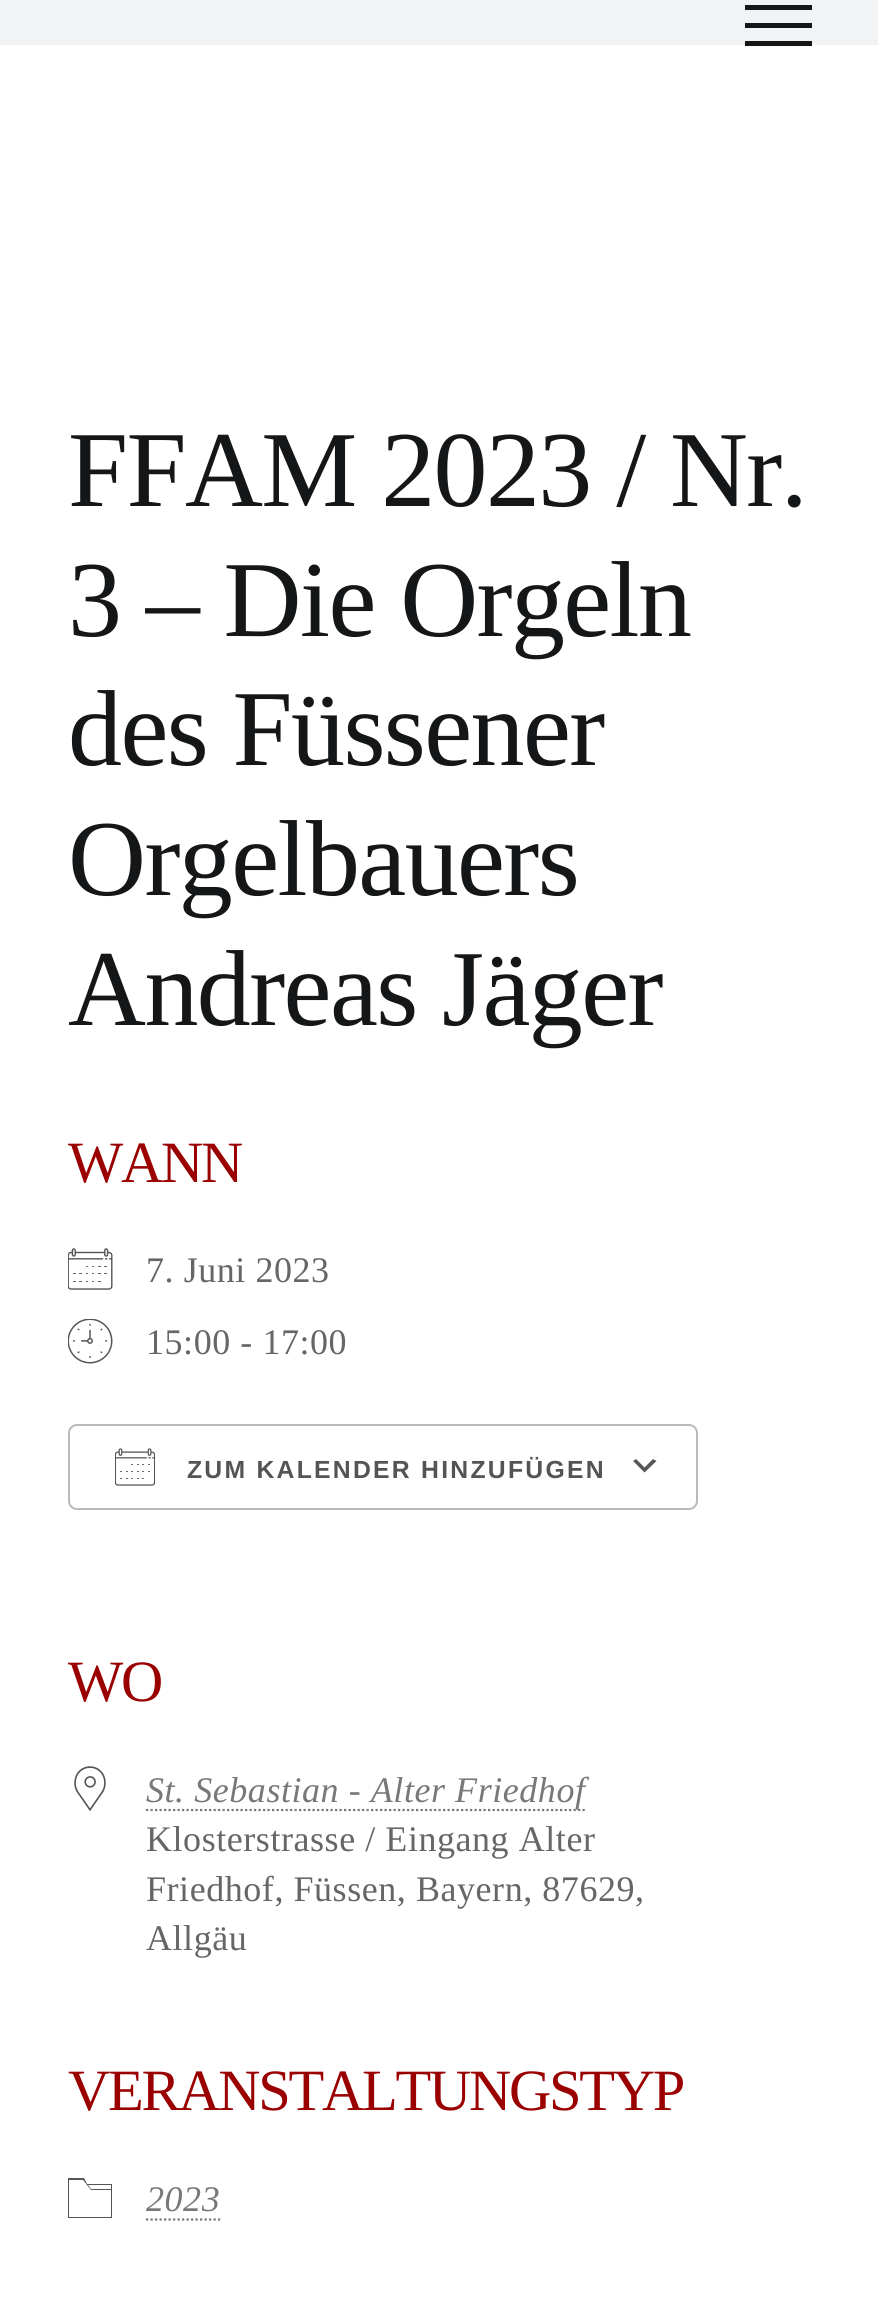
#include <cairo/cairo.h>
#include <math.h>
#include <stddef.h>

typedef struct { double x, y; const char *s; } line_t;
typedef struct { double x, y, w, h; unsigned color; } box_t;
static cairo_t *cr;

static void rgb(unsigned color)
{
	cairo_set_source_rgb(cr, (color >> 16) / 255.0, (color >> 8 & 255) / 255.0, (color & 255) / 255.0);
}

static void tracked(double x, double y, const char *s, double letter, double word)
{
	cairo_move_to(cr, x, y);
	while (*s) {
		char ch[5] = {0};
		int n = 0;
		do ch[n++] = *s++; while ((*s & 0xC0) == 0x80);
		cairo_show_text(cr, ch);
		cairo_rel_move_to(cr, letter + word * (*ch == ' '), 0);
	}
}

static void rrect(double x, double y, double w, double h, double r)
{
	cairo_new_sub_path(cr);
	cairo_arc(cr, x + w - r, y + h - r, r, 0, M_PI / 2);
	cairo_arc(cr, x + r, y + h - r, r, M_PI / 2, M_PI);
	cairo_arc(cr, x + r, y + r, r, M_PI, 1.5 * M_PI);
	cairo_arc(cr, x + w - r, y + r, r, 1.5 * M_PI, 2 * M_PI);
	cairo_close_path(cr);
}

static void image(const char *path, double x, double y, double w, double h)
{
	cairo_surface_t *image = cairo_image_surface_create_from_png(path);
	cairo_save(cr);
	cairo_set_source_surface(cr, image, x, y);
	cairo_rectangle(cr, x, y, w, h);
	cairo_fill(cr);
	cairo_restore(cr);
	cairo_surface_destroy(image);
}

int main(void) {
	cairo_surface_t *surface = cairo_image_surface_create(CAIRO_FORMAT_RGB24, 878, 2318);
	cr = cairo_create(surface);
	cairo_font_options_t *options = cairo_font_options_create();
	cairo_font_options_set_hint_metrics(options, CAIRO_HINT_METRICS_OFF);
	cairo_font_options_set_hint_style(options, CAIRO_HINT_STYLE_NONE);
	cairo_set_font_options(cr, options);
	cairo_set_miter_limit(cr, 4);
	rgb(0xffffff);
	cairo_paint(cr);
	{
		static const box_t items[] = {
			{0, 0, 878, 45, 0xf2f3f5},
			{745, 5, 67, 5, 0x141617},
			{745, 23, 67, 5, 0x141617},
			{745, 41, 67, 5, 0x141617},
		};
		for (size_t i = 0; i < sizeof items / sizeof *items; i++) {
			rgb(items[i].color);
			cairo_rectangle(cr, items[i].x, items[i].y, items[i].w, items[i].h);
			cairo_fill(cr);
		}
	}
	image("img/1.png", 68, 1248, 45, 42);
	image("img/2.png", 68, 1319, 45, 45);
	rgb(0x555555);
	cairo_new_path(cr);
	cairo_move_to(cr, 636, 1459);
	cairo_line_to(cr, 644.5, 1467.5);
	cairo_line_to(cr, 653, 1459);
	cairo_line_to(cr, 656.5, 1461);
	cairo_line_to(cr, 644.5, 1472.5);
	cairo_line_to(cr, 633, 1461);
	cairo_close_path(cr);
	cairo_fill(cr);
	rrect(69, 1425, 628, 84, 8);
	rgb(0xbababa);
	cairo_stroke(cr);
	image("img/3.png", 115, 1448, 40, 38);
	image("img/4.png", 74, 1766, 32, 45);
	cairo_new_path(cr);
	cairo_move_to(cr, 146, 1810);
	cairo_line_to(cr, 585.5, 1810);
	rgb(0x787878);
	cairo_set_line_width(cr, 2.2);
	cairo_set_dash(cr, (double[]){2.25, 2.25}, 2, 0);
	cairo_stroke(cr);
	rgb(0x555555);
	cairo_new_path(cr);
	cairo_move_to(cr, 87, 2184);
	cairo_line_to(cr, 84, 2178);
	cairo_line_to(cr, 68, 2178);
	cairo_line_to(cr, 68, 2218);
	cairo_line_to(cr, 112, 2218);
	cairo_line_to(cr, 112, 2184);
	cairo_close_path(cr);
	cairo_move_to(cr, 111, 2185);
	cairo_line_to(cr, 111, 2189);
	cairo_line_to(cr, 91, 2189);
	cairo_line_to(cr, 88, 2185);
	cairo_close_path(cr);
	cairo_move_to(cr, 69, 2217);
	cairo_line_to(cr, 69, 2180);
	cairo_line_to(cr, 83, 2180);
	cairo_line_to(cr, 91, 2190);
	cairo_line_to(cr, 111, 2190);
	cairo_line_to(cr, 111, 2217);
	cairo_close_path(cr);
	cairo_fill(cr);
	cairo_new_path(cr);
	cairo_move_to(cr, 146, 2219.5);
	cairo_line_to(cr, 220.5, 2219.5);
	rgb(0x787878);
	cairo_stroke(cr);
	cairo_select_font_face(cr, "Liberation Serif", CAIRO_FONT_SLANT_NORMAL, CAIRO_FONT_WEIGHT_NORMAL);
	cairo_set_font_size(cr, 108);
	rgb(0x141617);
	{
		static const line_t items[] = {
			{68, 506, "FFAM 2023 / Nr."},
			{68, 636, "3 – Die Orgeln"},
			{68, 765, "des Füssener"},
			{68, 895, "Orgelbauers"},
			{68, 1025, "Andreas Jäger"},
		};
		for (size_t i = 0; i < sizeof items / sizeof *items; i++) {
			tracked(items[i].x, items[i].y, items[i].s, -1.6, 0);
		}
	}
	cairo_set_font_size(cr, 58.5);
	rgb(0x9a0000);
	tracked(68, 1182, "WANN", -2.25, 0);
	cairo_set_font_size(cr, 36);
	rgb(0x666666);
	tracked(146, 1282, "7. Juni 2023", 0.55, 0);
	tracked(146, 1354, "15:00 - 17:00", 0.55, 0);
	cairo_select_font_face(cr, "Liberation Sans", CAIRO_FONT_SLANT_NORMAL, CAIRO_FONT_WEIGHT_BOLD);
	cairo_set_font_size(cr, 24.75);
	rgb(0x545454);
	tracked(187, 1478, "ZUM KALENDER HINZUFÜGEN", 2.25, 0);
	cairo_select_font_face(cr, "Liberation Serif", CAIRO_FONT_SLANT_NORMAL, CAIRO_FONT_WEIGHT_NORMAL);
	cairo_set_font_size(cr, 58.5);
	rgb(0x9a0000);
	tracked(68, 1701, "WO", -2.25, 0);
	cairo_select_font_face(cr, "Liberation Serif", CAIRO_FONT_SLANT_ITALIC, CAIRO_FONT_WEIGHT_NORMAL);
	cairo_set_font_size(cr, 36);
	rgb(0x787878);
	tracked(146, 1802, "St. Sebastian - Alter Friedhof", 0.55, 0);
	cairo_select_font_face(cr, "Liberation Serif", CAIRO_FONT_SLANT_NORMAL, CAIRO_FONT_WEIGHT_NORMAL);
	rgb(0x666666);
	{
		static const line_t items[] = {
			{146, 1851, "Klosterstrasse / Eingang Alter"},
			{146, 1901, "Friedhof, Füssen, Bayern, 87629,"},
			{146, 1950, "Allgäu"},
		};
		for (size_t i = 0; i < sizeof items / sizeof *items; i++) {
			tracked(items[i].x, items[i].y, items[i].s, 0.55, 0);
		}
	}
	cairo_set_font_size(cr, 58.5);
	rgb(0x9a0000);
	tracked(68, 2110, "VERANSTALTUNGSTYP", -2.25, 0);
	cairo_select_font_face(cr, "Liberation Serif", CAIRO_FONT_SLANT_ITALIC, CAIRO_FONT_WEIGHT_NORMAL);
	cairo_set_font_size(cr, 36);
	rgb(0x787878);
	tracked(146, 2211, "2023", 0.55, 0);
	cairo_surface_write_to_png(surface, "page.png");
	cairo_font_options_destroy(options);
	cairo_destroy(cr);
	cairo_surface_destroy(surface);
	return 0;
}
